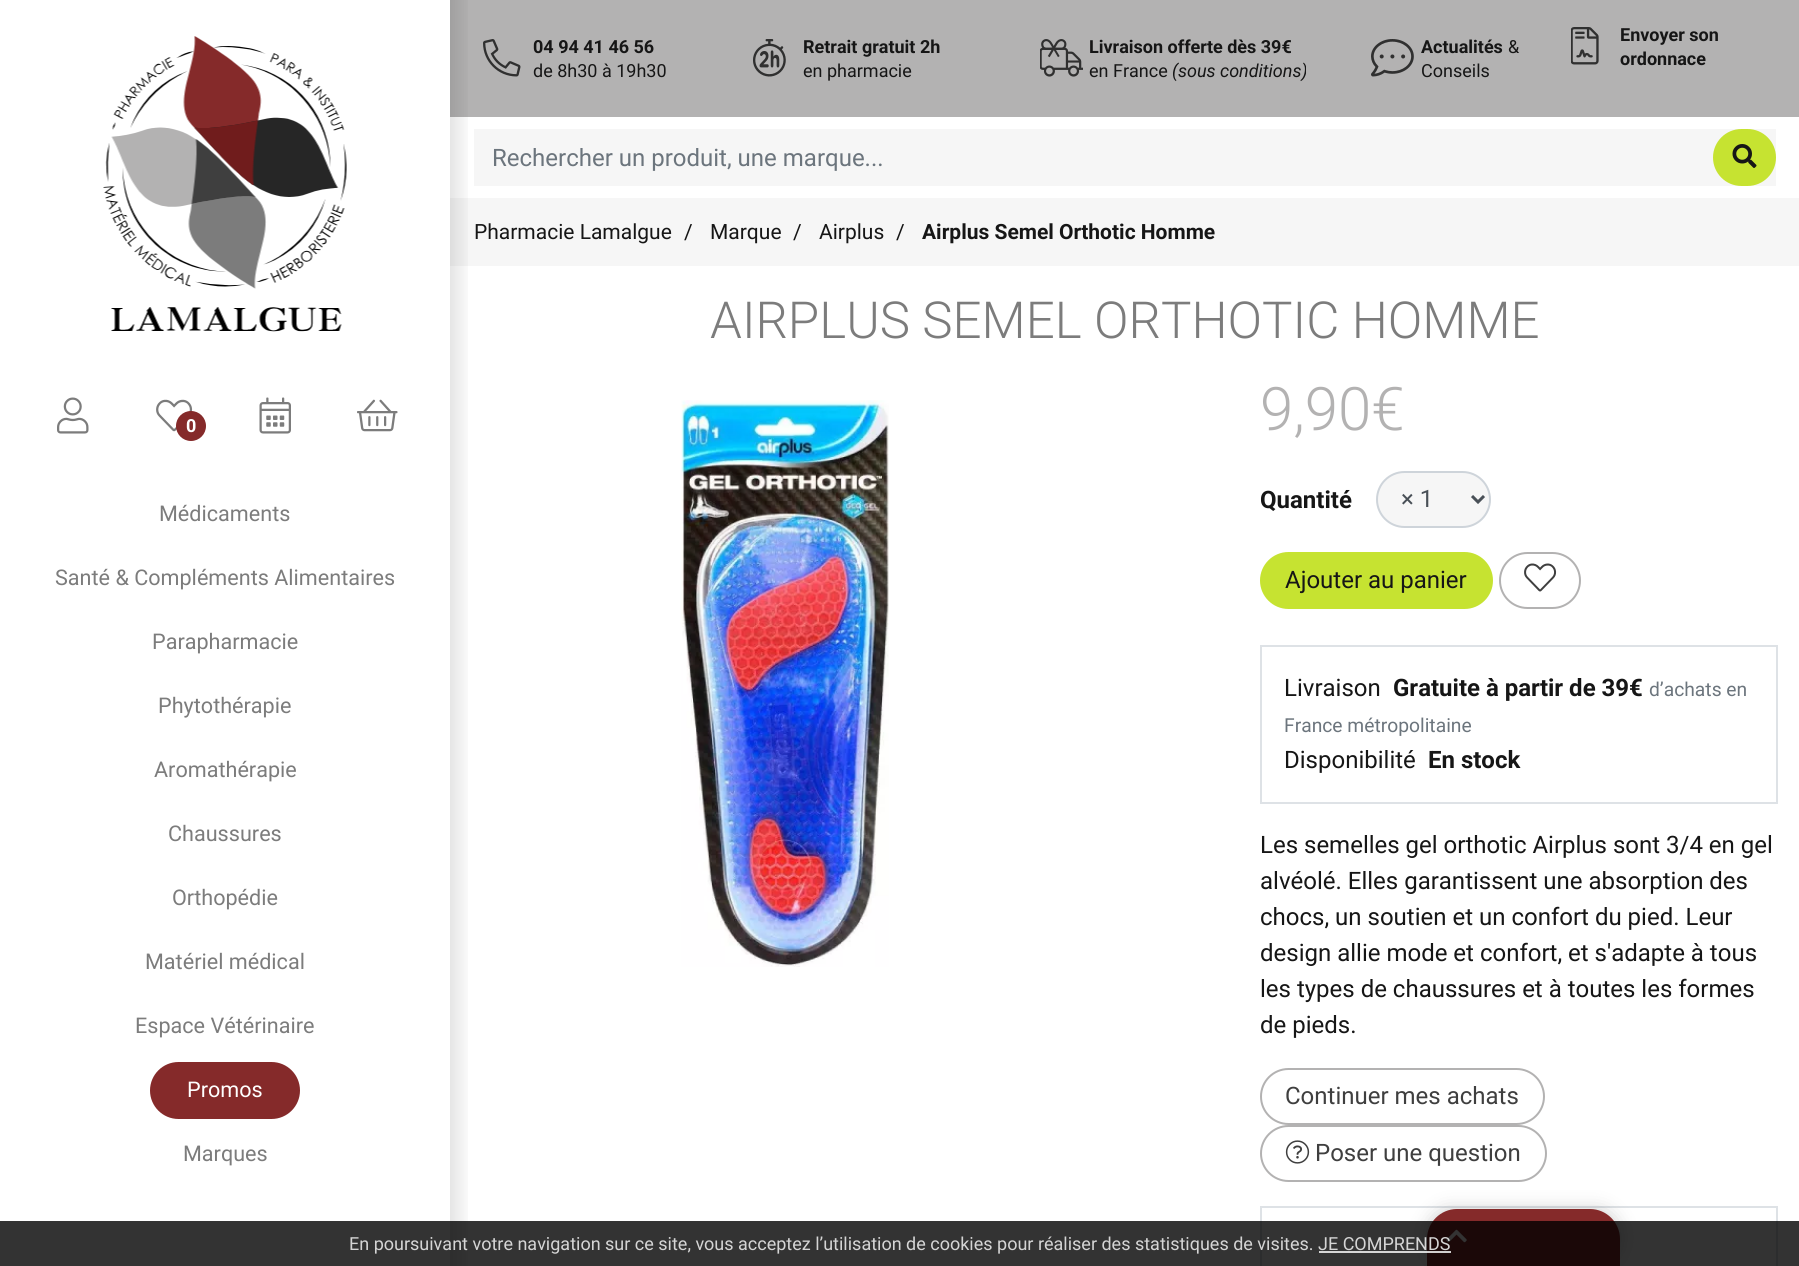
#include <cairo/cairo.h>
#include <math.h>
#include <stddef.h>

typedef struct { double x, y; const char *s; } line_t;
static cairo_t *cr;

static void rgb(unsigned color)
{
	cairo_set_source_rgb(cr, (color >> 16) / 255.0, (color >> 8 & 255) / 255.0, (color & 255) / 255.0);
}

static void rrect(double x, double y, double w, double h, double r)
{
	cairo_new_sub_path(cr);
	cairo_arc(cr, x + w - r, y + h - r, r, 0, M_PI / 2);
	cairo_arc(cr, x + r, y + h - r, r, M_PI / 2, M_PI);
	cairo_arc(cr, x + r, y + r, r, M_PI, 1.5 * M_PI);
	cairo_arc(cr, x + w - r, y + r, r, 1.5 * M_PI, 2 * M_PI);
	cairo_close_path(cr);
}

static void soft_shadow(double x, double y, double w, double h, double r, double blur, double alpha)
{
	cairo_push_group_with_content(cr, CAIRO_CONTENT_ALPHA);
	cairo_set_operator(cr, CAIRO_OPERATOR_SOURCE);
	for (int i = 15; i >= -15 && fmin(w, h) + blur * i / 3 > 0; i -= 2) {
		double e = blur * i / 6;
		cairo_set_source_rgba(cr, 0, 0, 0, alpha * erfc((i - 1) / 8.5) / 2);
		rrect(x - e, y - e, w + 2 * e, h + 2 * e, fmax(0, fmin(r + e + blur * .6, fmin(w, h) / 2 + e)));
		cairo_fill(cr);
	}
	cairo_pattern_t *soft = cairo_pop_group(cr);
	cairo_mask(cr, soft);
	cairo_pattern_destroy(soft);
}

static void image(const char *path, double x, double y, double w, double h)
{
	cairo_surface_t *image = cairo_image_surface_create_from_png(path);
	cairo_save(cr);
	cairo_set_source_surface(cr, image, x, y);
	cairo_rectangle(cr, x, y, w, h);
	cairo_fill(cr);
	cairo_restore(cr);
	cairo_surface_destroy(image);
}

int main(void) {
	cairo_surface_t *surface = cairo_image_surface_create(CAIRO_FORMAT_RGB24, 1799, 1266);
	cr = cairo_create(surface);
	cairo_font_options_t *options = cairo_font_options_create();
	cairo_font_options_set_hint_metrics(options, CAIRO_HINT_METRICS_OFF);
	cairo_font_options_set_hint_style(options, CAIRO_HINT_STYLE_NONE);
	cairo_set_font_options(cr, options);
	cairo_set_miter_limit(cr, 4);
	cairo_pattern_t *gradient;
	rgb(0xffffff);
	cairo_paint(cr);
	image("img/1.png", 103, 36, 244, 296);
	rgb(0xb3b2b2);
	cairo_rectangle(cr, 450, 0, 1349, 117);
	cairo_fill(cr);
	rgb(0xf6f6f6);
	cairo_rectangle(cr, 450, 198, 1349, 68);
	cairo_fill(cr);
	gradient = cairo_pattern_create_linear(473, 633, 450, 633);
	cairo_pattern_add_color_stop_rgba(gradient, 0, 0, 0, 0, 0);
	cairo_pattern_add_color_stop_rgba(gradient, 1, 0, 0, 0, 0.1);
	cairo_set_source(cr, gradient);
	cairo_pattern_destroy(gradient);
	cairo_rectangle(cr, 450, 0, 18, 1266);
	cairo_fill(cr);
	image("img/2.png", 57, 397, 32, 37);
	image("img/3.png", 156, 399, 37, 33);
	rgb(0x852a2a);
	cairo_arc(cr, 191, 426, 15, 0, 2 * M_PI);
	cairo_fill(cr);
	image("img/4.png", 259, 397, 32, 37);
	image("img/5.png", 357, 399, 41, 33);
	rrect(150, 1062, 150, 57, 28.5);
	cairo_fill(cr);
	image("img/6.png", 483, 39, 38, 38);
	image("img/7.png", 753, 39, 33, 38);
	image("img/8.png", 1040, 39, 43, 38);
	image("img/9.png", 1371, 39, 43, 38);
	image("img/10.png", 1571, 27, 28, 38);
	rgb(0xf6f6f6);
	cairo_rectangle(cr, 474, 129, 1302, 57);
	cairo_fill(cr);
	rgb(0xc6e331);
	rrect(1714, 130, 61, 55, 27.5);
	cairo_fill_preserve(cr);
	cairo_stroke(cr);
	image("img/11.png", 1732, 144, 25, 24);
	image("img/12.png", 681, 400, 208, 567);
	rgb(0xf6f6f6);
	rrect(1377, 472, 113, 55, 27.5);
	cairo_fill_preserve(cr);
	rgb(0xced4da);
	cairo_stroke(cr);
	cairo_new_path(cr);
	cairo_move_to(cr, 1472, 496);
	cairo_line_to(cr, 1478, 502);
	cairo_line_to(cr, 1484, 496);
	rgb(0x495057);
	cairo_set_line_width(cr, 3);
	cairo_stroke(cr);
	rgb(0xc6e331);
	rrect(1261, 553, 231, 55, 27.5);
	cairo_fill_preserve(cr);
	cairo_set_line_width(cr, 2);
	cairo_stroke(cr);
	rrect(1500, 553, 80, 55, 27.5);
	rgb(0xb3b2b2);
	cairo_stroke(cr);
	image("img/13.png", 1524, 563, 33, 29);
	cairo_rectangle(cr, 1261, 646, 516, 157);
	rgb(0xdee2e6);
	cairo_stroke(cr);
	rrect(1261, 1069, 283, 55, 27.5);
	rgb(0xb3b2b2);
	cairo_stroke(cr);
	rrect(1261, 1126, 285, 55, 27.5);
	cairo_stroke(cr);
	image("img/14.png", 1285, 1140, 25, 24);
	cairo_rectangle(cr, 1261, 1207, 516, 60);
	rgb(0xdee2e6);
	cairo_stroke(cr);
	rgb(0x000000);
	soft_shadow(1427, 1209, 193, 57, 30, 9, 0.18);
	rgb(0x852a2a);
	cairo_new_path(cr);
	cairo_move_to(cr, 1457, 1209);
	cairo_line_to(cr, 1590, 1209);
	cairo_curve_to(cr, 1606.5, 1209, 1620, 1222.5, 1620, 1239);
	cairo_line_to(cr, 1620, 1266);
	cairo_line_to(cr, 1427, 1266);
	cairo_line_to(cr, 1427, 1239);
	cairo_curve_to(cr, 1427, 1222.5, 1440.5, 1209, 1457, 1209);
	cairo_close_path(cr);
	cairo_fill(cr);
	image("img/15.png", 1446, 1229, 21, 14);
	cairo_set_source_rgba(cr, 0, 0, 0, 0.8);
	cairo_rectangle(cr, 0, 1221, 1799, 45);
	cairo_fill(cr);
	cairo_set_source_rgba(cr, 1, 1, 1, 0.8);
	cairo_rectangle(cr, 1319, 1251, 132, 2);
	cairo_fill(cr);
	cairo_select_font_face(cr, "Roboto", CAIRO_FONT_SLANT_NORMAL, CAIRO_FONT_WEIGHT_BOLD);
	cairo_set_font_size(cr, 18);
	rgb(0xffffff);
	cairo_move_to(cr, 186, 432);
	cairo_show_text(cr, "0");
	cairo_select_font_face(cr, "Roboto", CAIRO_FONT_SLANT_NORMAL, CAIRO_FONT_WEIGHT_NORMAL);
	cairo_set_font_size(cr, 21.6);
	rgb(0x7c7c7c);
	{
		static const line_t items[] = {
			{159, 521, "Médicaments"},
			{55, 585, "Santé & Compléments Alimentaires"},
			{152, 649, "Parapharmacie"},
			{158, 713, "Phytothérapie"},
			{154, 777, "Aromathérapie"},
			{168, 841, "Chaussures"},
			{172, 905, "Orthopédie"},
			{145, 969, "Matériel médical"},
			{135, 1033, "Espace Vétérinaire"},
		};
		for (size_t i = 0; i < sizeof items / sizeof *items; i++) {
			cairo_move_to(cr, items[i].x, items[i].y);
			cairo_show_text(cr, items[i].s);
		}
	}
	rgb(0xffffff);
	cairo_move_to(cr, 187, 1097);
	cairo_show_text(cr, "Promos");
	rgb(0x7c7c7c);
	cairo_move_to(cr, 183, 1161);
	cairo_show_text(cr, "Marques");
	cairo_select_font_face(cr, "Roboto", CAIRO_FONT_SLANT_NORMAL, CAIRO_FONT_WEIGHT_BOLD);
	cairo_set_font_size(cr, 18);
	rgb(0x161616);
	cairo_move_to(cr, 533, 53);
	cairo_show_text(cr, "04 94 41 46 56");
	cairo_select_font_face(cr, "Roboto", CAIRO_FONT_SLANT_NORMAL, CAIRO_FONT_WEIGHT_NORMAL);
	cairo_move_to(cr, 533, 77);
	cairo_show_text(cr, "de 8h30 à 19h30");
	cairo_select_font_face(cr, "Roboto", CAIRO_FONT_SLANT_NORMAL, CAIRO_FONT_WEIGHT_BOLD);
	cairo_move_to(cr, 803, 53);
	cairo_show_text(cr, "Retrait gratuit 2h");
	cairo_select_font_face(cr, "Roboto", CAIRO_FONT_SLANT_NORMAL, CAIRO_FONT_WEIGHT_NORMAL);
	cairo_move_to(cr, 803, 77);
	cairo_show_text(cr, "en pharmacie");
	cairo_select_font_face(cr, "Roboto", CAIRO_FONT_SLANT_NORMAL, CAIRO_FONT_WEIGHT_BOLD);
	cairo_move_to(cr, 1089, 53);
	cairo_show_text(cr, "Livraison offerte dès 39€");
	cairo_select_font_face(cr, "Roboto", CAIRO_FONT_SLANT_NORMAL, CAIRO_FONT_WEIGHT_NORMAL);
	cairo_move_to(cr, 1089, 77);
	cairo_show_text(cr, "en France");
	cairo_select_font_face(cr, "Roboto", CAIRO_FONT_SLANT_ITALIC, CAIRO_FONT_WEIGHT_NORMAL);
	cairo_move_to(cr, 1172, 77);
	cairo_show_text(cr, "(sous conditions)");
	cairo_select_font_face(cr, "Roboto", CAIRO_FONT_SLANT_NORMAL, CAIRO_FONT_WEIGHT_BOLD);
	cairo_move_to(cr, 1421, 53);
	cairo_show_text(cr, "Actualités");
	cairo_select_font_face(cr, "Roboto", CAIRO_FONT_SLANT_NORMAL, CAIRO_FONT_WEIGHT_NORMAL);
	cairo_move_to(cr, 1508, 53);
	cairo_show_text(cr, "&");
	cairo_move_to(cr, 1421, 77);
	cairo_show_text(cr, "Conseils");
	cairo_select_font_face(cr, "Roboto", CAIRO_FONT_SLANT_NORMAL, CAIRO_FONT_WEIGHT_BOLD);
	cairo_move_to(cr, 1620, 41);
	cairo_show_text(cr, "Envoyer son");
	cairo_move_to(cr, 1620, 65);
	cairo_show_text(cr, "ordonnace");
	cairo_select_font_face(cr, "Roboto", CAIRO_FONT_SLANT_NORMAL, CAIRO_FONT_WEIGHT_NORMAL);
	cairo_set_font_size(cr, 24);
	rgb(0x6c757d);
	cairo_move_to(cr, 492, 166);
	cairo_show_text(cr, "Rechercher un produit, une marque...");
	cairo_set_font_size(cr, 21);
	rgb(0x161616);
	{
		static const line_t items[] = {
			{474, 239, "Pharmacie Lamalgue"},
			{684, 239, "/"},
			{710, 239, "Marque"},
			{793, 239, "/"},
			{819, 239, "Airplus"},
			{896, 239, "/"},
		};
		for (size_t i = 0; i < sizeof items / sizeof *items; i++) {
			cairo_move_to(cr, items[i].x, items[i].y);
			cairo_show_text(cr, items[i].s);
		}
	}
	cairo_select_font_face(cr, "Roboto", CAIRO_FONT_SLANT_NORMAL, CAIRO_FONT_WEIGHT_BOLD);
	cairo_move_to(cr, 922, 239);
	cairo_show_text(cr, "Airplus Semel Orthotic Homme");
	cairo_select_font_face(cr, "Roboto Light", CAIRO_FONT_SLANT_NORMAL, CAIRO_FONT_WEIGHT_NORMAL);
	cairo_set_font_size(cr, 51);
	rgb(0x7c7c7c);
	cairo_move_to(cr, 710, 338);
	cairo_show_text(cr, "AIRPLUS SEMEL ORTHOTIC HOMME");
	cairo_set_font_size(cr, 60);
	rgb(0xb3b2b2);
	cairo_move_to(cr, 1260, 430);
	cairo_show_text(cr, "9,90€");
	cairo_select_font_face(cr, "Roboto", CAIRO_FONT_SLANT_NORMAL, CAIRO_FONT_WEIGHT_BOLD);
	cairo_set_font_size(cr, 24);
	rgb(0x161616);
	cairo_move_to(cr, 1260, 508);
	cairo_show_text(cr, "Quantité");
	cairo_select_font_face(cr, "Roboto", CAIRO_FONT_SLANT_NORMAL, CAIRO_FONT_WEIGHT_NORMAL);
	rgb(0x495057);
	cairo_move_to(cr, 1401, 507);
	cairo_show_text(cr, "× 1");
	rgb(0x161616);
	cairo_move_to(cr, 1285, 588);
	cairo_show_text(cr, "Ajouter au panier");
	cairo_move_to(cr, 1284, 696);
	cairo_show_text(cr, "Livraison");
	cairo_select_font_face(cr, "Roboto", CAIRO_FONT_SLANT_NORMAL, CAIRO_FONT_WEIGHT_BOLD);
	cairo_move_to(cr, 1393, 696);
	cairo_show_text(cr, "Gratuite à partir de 39€");
	cairo_select_font_face(cr, "Roboto", CAIRO_FONT_SLANT_NORMAL, CAIRO_FONT_WEIGHT_NORMAL);
	cairo_set_font_size(cr, 19.25);
	rgb(0x6c757d);
	cairo_move_to(cr, 1649, 696);
	cairo_show_text(cr, "d’achats en");
	cairo_move_to(cr, 1284, 732);
	cairo_show_text(cr, "France métropolitaine");
	cairo_set_font_size(cr, 24);
	rgb(0x161616);
	cairo_move_to(cr, 1284, 768);
	cairo_show_text(cr, "Disponibilité");
	cairo_select_font_face(cr, "Roboto", CAIRO_FONT_SLANT_NORMAL, CAIRO_FONT_WEIGHT_BOLD);
	cairo_move_to(cr, 1428, 768);
	cairo_show_text(cr, "En stock");
	cairo_select_font_face(cr, "Roboto", CAIRO_FONT_SLANT_NORMAL, CAIRO_FONT_WEIGHT_NORMAL);
	{
		static const line_t items[] = {
			{1260, 853, "Les semelles gel orthotic Airplus sont 3/4 en gel"},
			{1260, 889, "alvéolé. Elles garantissent une absorption des"},
			{1260, 925, "chocs, un soutien et un confort du pied. Leur"},
			{1260, 961, "design allie mode et confort, et s'adapte à tous"},
			{1260, 997, "les types de chaussures et à toutes les formes"},
			{1260, 1033, "de pieds."},
		};
		for (size_t i = 0; i < sizeof items / sizeof *items; i++) {
			cairo_move_to(cr, items[i].x, items[i].y);
			cairo_show_text(cr, items[i].s);
		}
	}
	rgb(0x3f3f3f);
	cairo_move_to(cr, 1285, 1104);
	cairo_show_text(cr, "Continuer mes achats");
	cairo_move_to(cr, 1315, 1161);
	cairo_show_text(cr, "Poser une question");
	cairo_set_font_size(cr, 18);
	rgb(0xd5d5d5);
	cairo_move_to(cr, 349, 1250);
	cairo_show_text(cr, "En poursuivant votre navigation sur ce site, vous acceptez l’utilisation de cookies pour réaliser des statistiques de visites.");
	cairo_move_to(cr, 1318, 1250);
	cairo_show_text(cr, "JE COMPRENDS");
	cairo_surface_write_to_png(surface, "page.png");
	cairo_font_options_destroy(options);
	cairo_destroy(cr);
	cairo_surface_destroy(surface);
	return 0;
}
